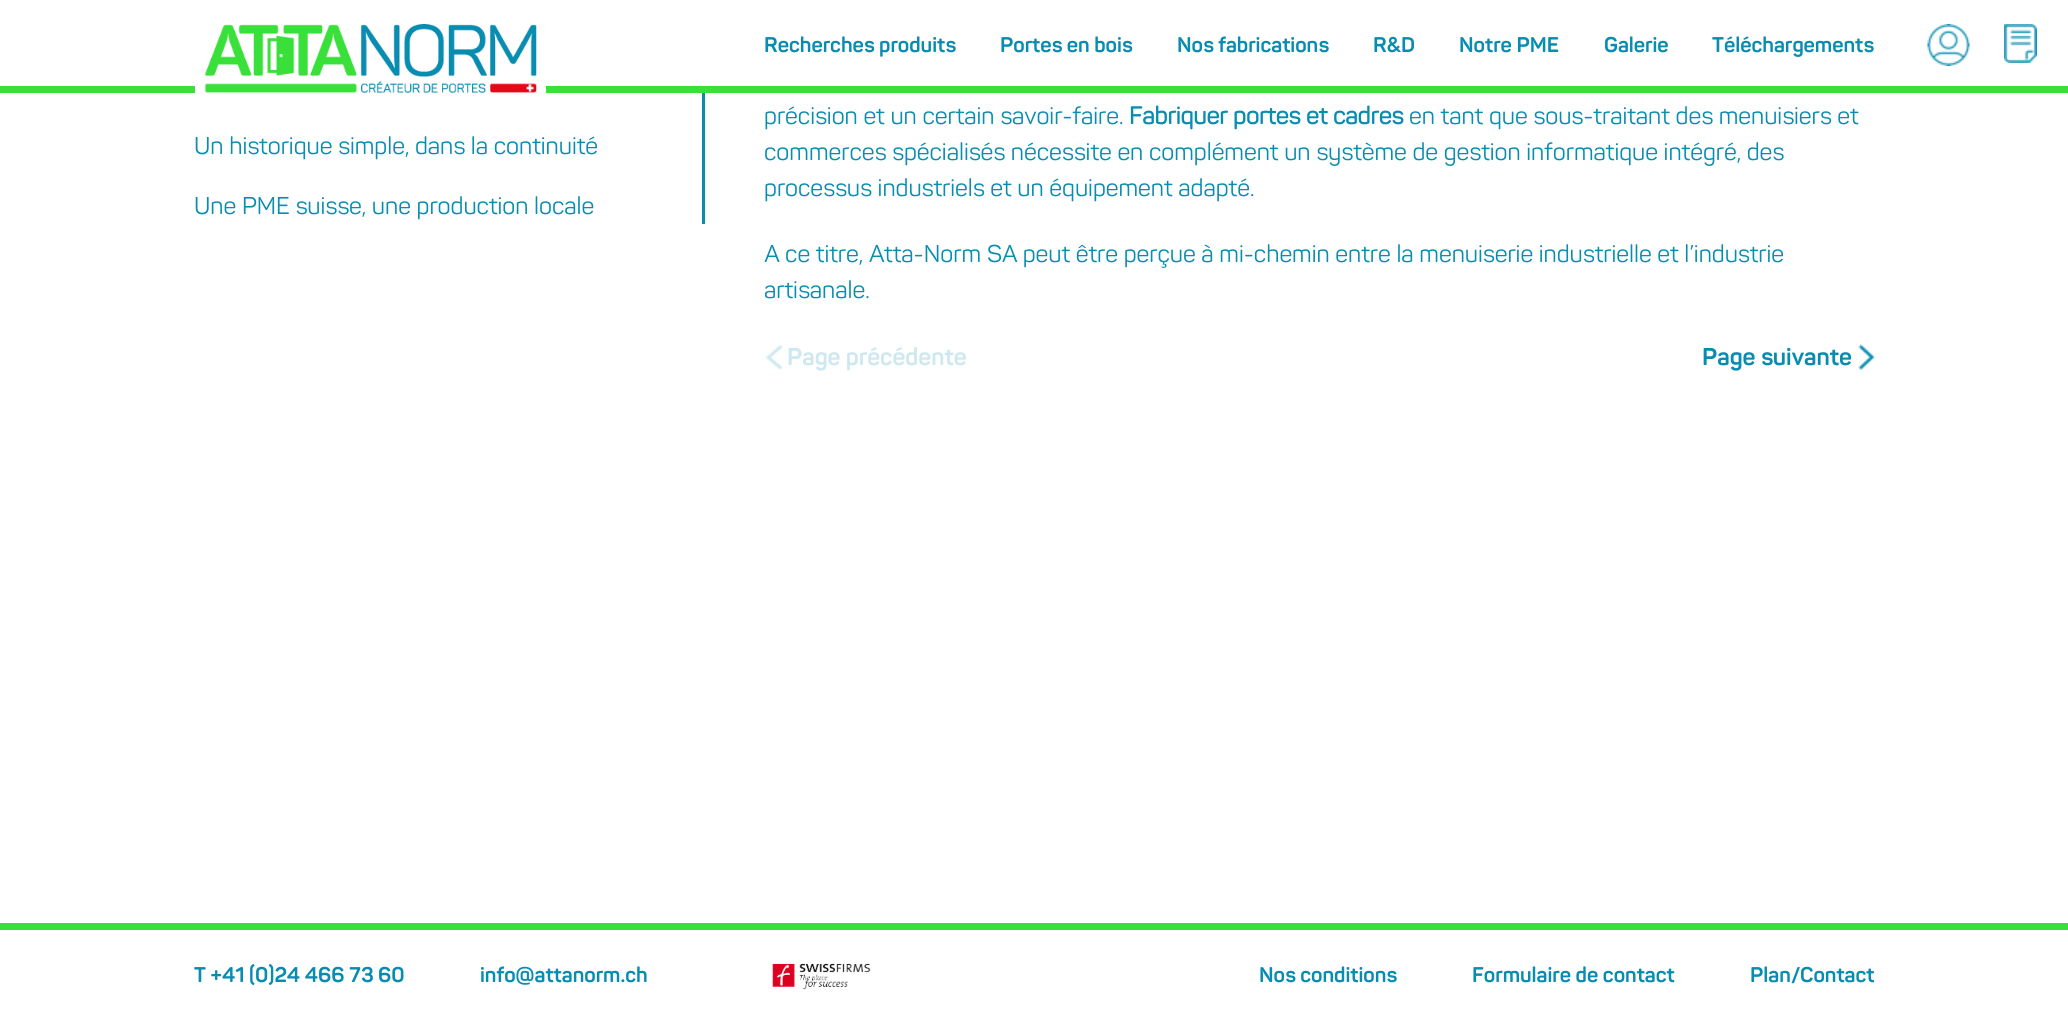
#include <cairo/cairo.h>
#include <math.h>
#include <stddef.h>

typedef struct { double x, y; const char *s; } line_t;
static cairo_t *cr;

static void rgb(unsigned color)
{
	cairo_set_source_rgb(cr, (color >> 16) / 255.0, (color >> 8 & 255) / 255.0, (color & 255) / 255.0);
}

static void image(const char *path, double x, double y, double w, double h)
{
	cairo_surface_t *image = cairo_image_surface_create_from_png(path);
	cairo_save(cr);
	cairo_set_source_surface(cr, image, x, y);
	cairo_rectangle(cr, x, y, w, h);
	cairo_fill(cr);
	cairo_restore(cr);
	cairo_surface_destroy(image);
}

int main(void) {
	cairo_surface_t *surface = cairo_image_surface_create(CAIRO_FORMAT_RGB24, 2068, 1015);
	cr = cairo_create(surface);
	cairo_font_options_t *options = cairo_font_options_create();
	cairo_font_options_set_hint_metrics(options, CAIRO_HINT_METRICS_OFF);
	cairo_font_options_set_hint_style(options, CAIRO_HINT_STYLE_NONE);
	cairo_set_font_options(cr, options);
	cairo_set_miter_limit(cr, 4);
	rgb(0xffffff);
	cairo_paint(cr);
	rgb(0x38e039);
	cairo_rectangle(cr, 0, 86, 2068, 7);
	cairo_fill(cr);
	rgb(0xffffff);
	cairo_rectangle(cr, 195, 86, 351, 7);
	cairo_fill(cr);
	image("img/1.png", 204, 24, 333, 69);
	image("img/2.png", 1927, 24, 43, 42);
	image("img/3.png", 2004, 24, 33, 39);
	rgb(0x088cb0);
	cairo_rectangle(cr, 702, 93, 3, 131);
	cairo_fill(cr);
	image("img/4.png", 765, 344, 18, 26);
	image("img/5.png", 1858, 344, 17, 26);
	rgb(0x38e039);
	cairo_rectangle(cr, 0, 923, 2068, 7);
	cairo_fill(cr);
	image("img/6.png", 772, 963, 99, 27);
	cairo_select_font_face(cr, "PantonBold", CAIRO_FONT_SLANT_NORMAL, CAIRO_FONT_WEIGHT_BOLD);
	cairo_set_font_size(cr, 21);
	rgb(0x088cb0);
	{
		static const line_t items[] = {
			{764, 52, "Recherches produits"},
			{1000, 52, "Portes en bois"},
			{1177, 52, "Nos fabrications"},
			{1373, 52, "R&D"},
			{1459, 52, "Notre PME"},
			{1604, 52, "Galerie"},
			{1712, 52, "Téléchargements"},
		};
		for (size_t i = 0; i < sizeof items / sizeof *items; i++) {
			cairo_move_to(cr, items[i].x, items[i].y);
			cairo_show_text(cr, items[i].s);
		}
	}
	cairo_select_font_face(cr, "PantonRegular", CAIRO_FONT_SLANT_NORMAL, CAIRO_FONT_WEIGHT_NORMAL);
	cairo_set_font_size(cr, 24);
	{
		static const line_t items[] = {
			{194, 154, "Un historique simple, dans la continuité"},
			{194, 214, "Une PME suisse, une production locale"},
			{764, 124, "précision et un certain savoir-faire."},
		};
		for (size_t i = 0; i < sizeof items / sizeof *items; i++) {
			cairo_move_to(cr, items[i].x, items[i].y);
			cairo_show_text(cr, items[i].s);
		}
	}
	cairo_select_font_face(cr, "PantonRegular", CAIRO_FONT_SLANT_NORMAL, CAIRO_FONT_WEIGHT_BOLD);
	cairo_move_to(cr, 1129, 124);
	cairo_show_text(cr, "Fabriquer portes et cadres");
	cairo_select_font_face(cr, "PantonRegular", CAIRO_FONT_SLANT_NORMAL, CAIRO_FONT_WEIGHT_NORMAL);
	{
		static const line_t items[] = {
			{1409, 124, "en tant que sous-traitant des menuisiers et"},
			{764, 160, "commerces spécialisés nécessite en complément un système de gestion informatique intégré, des"},
			{764, 196, "processus industriels et un équipement adapté."},
			{764, 262, "A ce titre, Atta-Norm SA peut être perçue à mi-chemin entre la menuiserie industrielle et l’industrie"},
			{764, 298, "artisanale."},
		};
		for (size_t i = 0; i < sizeof items / sizeof *items; i++) {
			cairo_move_to(cr, items[i].x, items[i].y);
			cairo_show_text(cr, items[i].s);
		}
	}
	cairo_select_font_face(cr, "PantonBold", CAIRO_FONT_SLANT_NORMAL, CAIRO_FONT_WEIGHT_BOLD);
	rgb(0xcee8ef);
	cairo_move_to(cr, 787, 365);
	cairo_show_text(cr, "Page précédente");
	rgb(0x088cb0);
	cairo_move_to(cr, 1702, 365);
	cairo_show_text(cr, "Page suivante");
	cairo_set_font_size(cr, 21);
	{
		static const line_t items[] = {
			{194, 982, "T +41 (0)24 466 73 60"},
			{480, 982, "info@attanorm.ch"},
			{1259, 982, "Nos conditions"},
			{1472, 982, "Formulaire de contact"},
			{1750, 982, "Plan/Contact"},
		};
		for (size_t i = 0; i < sizeof items / sizeof *items; i++) {
			cairo_move_to(cr, items[i].x, items[i].y);
			cairo_show_text(cr, items[i].s);
		}
	}
	cairo_surface_write_to_png(surface, "page.png");
	cairo_font_options_destroy(options);
	cairo_destroy(cr);
	cairo_surface_destroy(surface);
	return 0;
}
